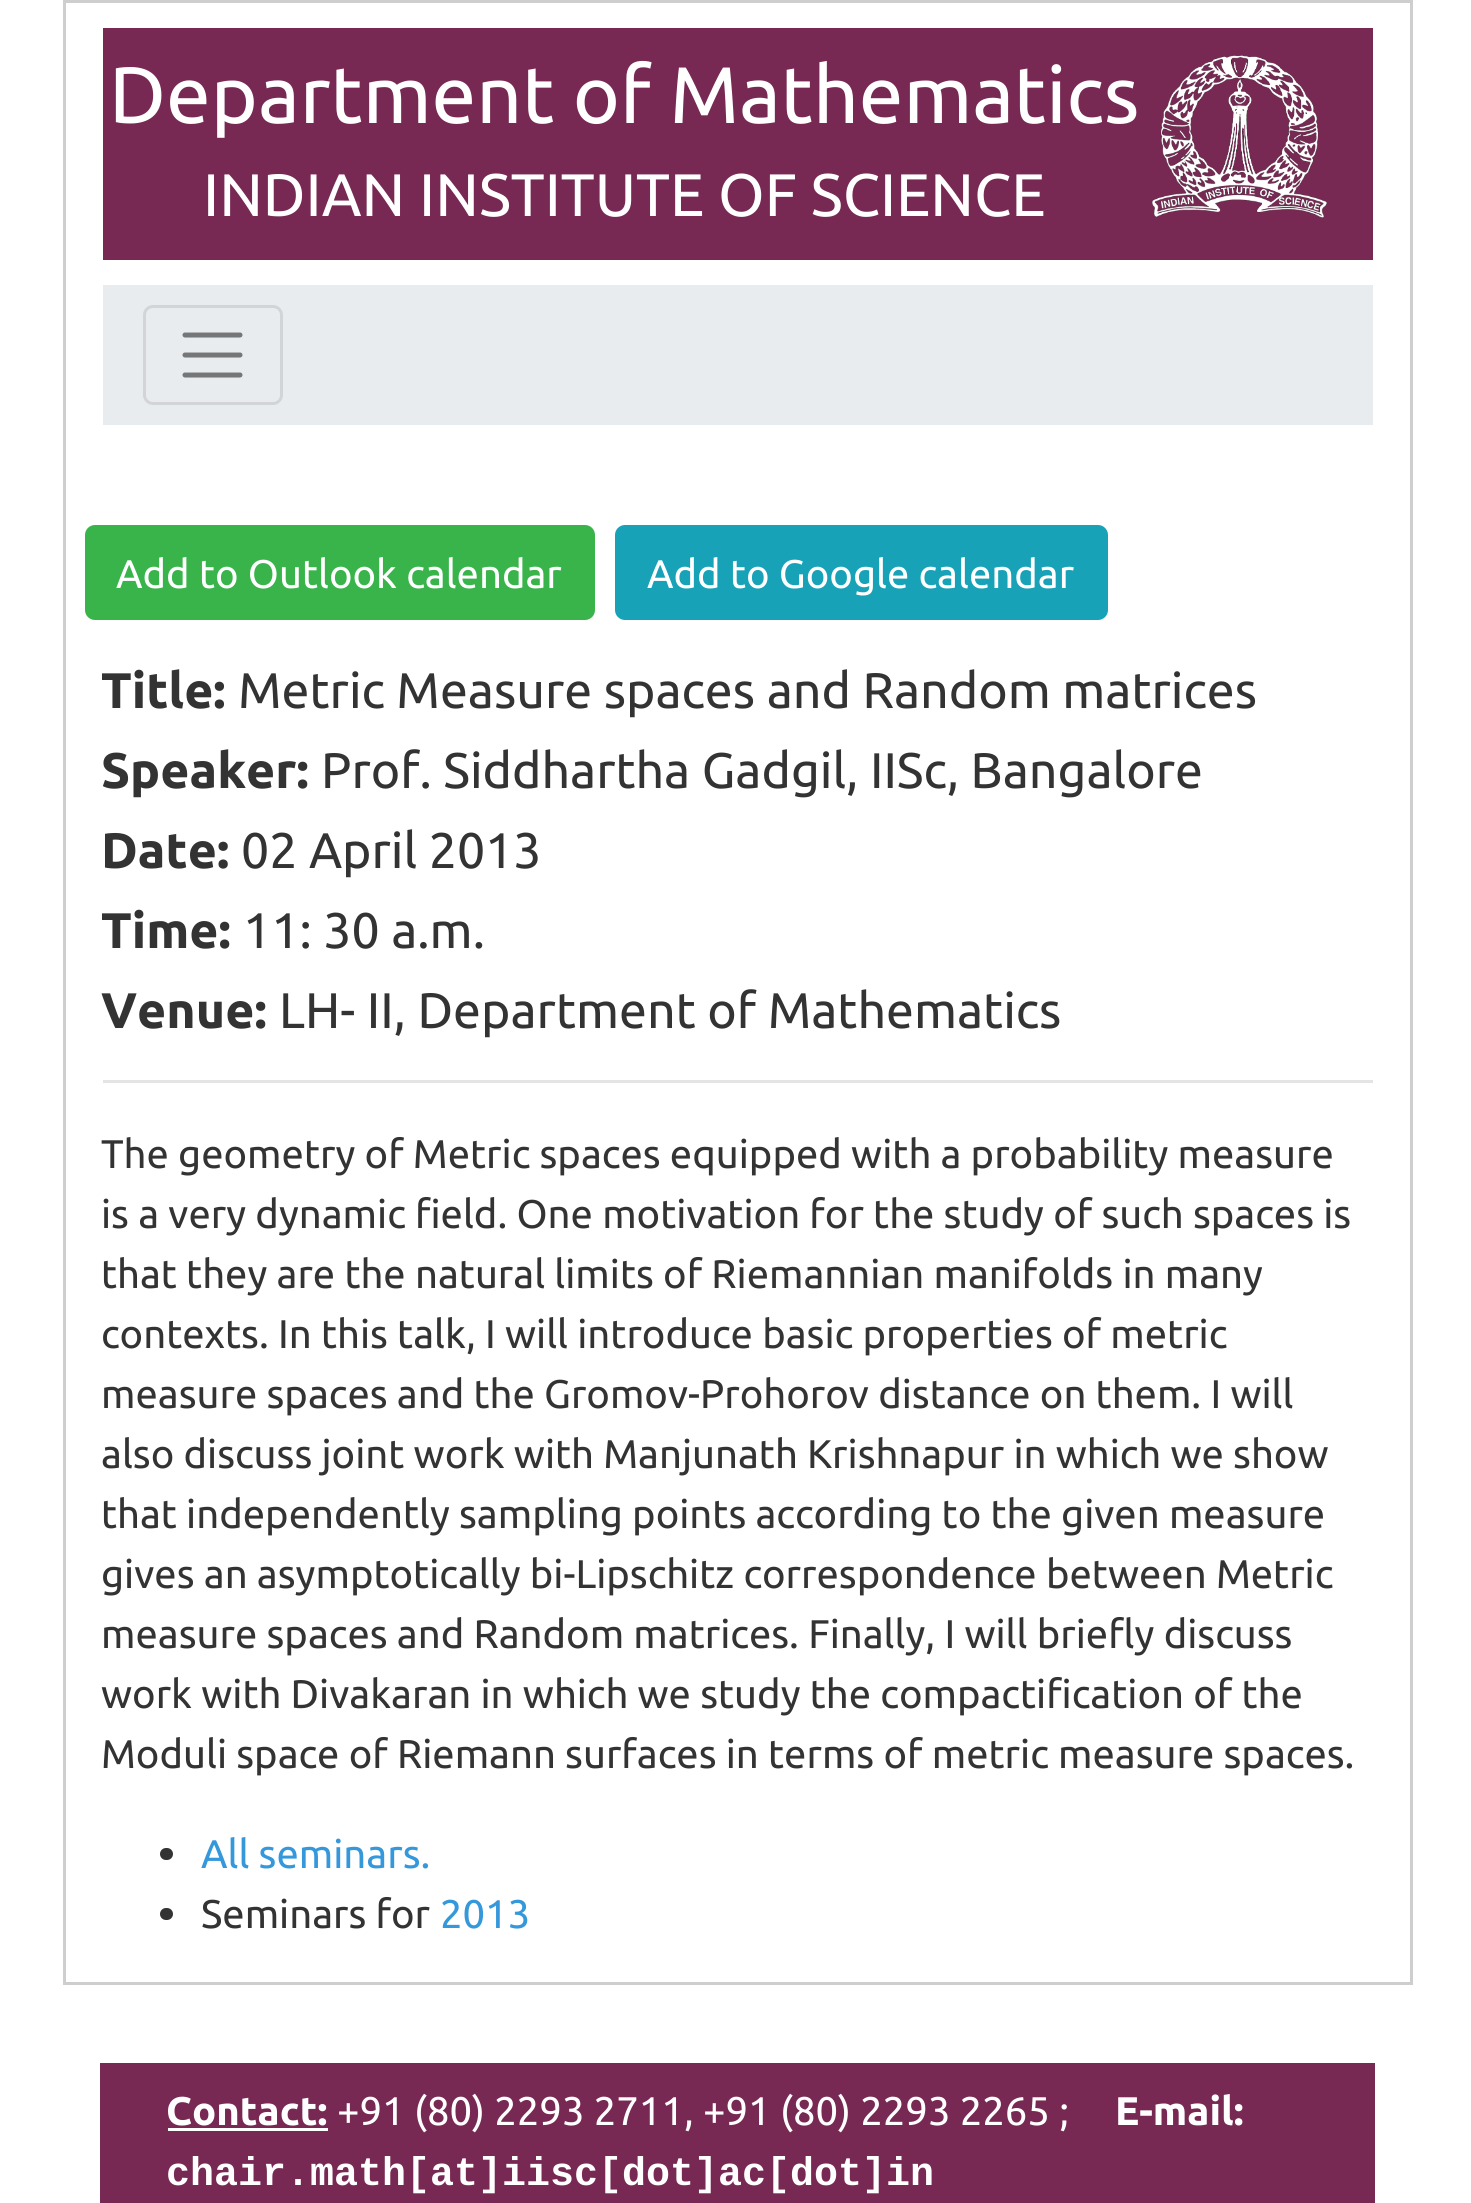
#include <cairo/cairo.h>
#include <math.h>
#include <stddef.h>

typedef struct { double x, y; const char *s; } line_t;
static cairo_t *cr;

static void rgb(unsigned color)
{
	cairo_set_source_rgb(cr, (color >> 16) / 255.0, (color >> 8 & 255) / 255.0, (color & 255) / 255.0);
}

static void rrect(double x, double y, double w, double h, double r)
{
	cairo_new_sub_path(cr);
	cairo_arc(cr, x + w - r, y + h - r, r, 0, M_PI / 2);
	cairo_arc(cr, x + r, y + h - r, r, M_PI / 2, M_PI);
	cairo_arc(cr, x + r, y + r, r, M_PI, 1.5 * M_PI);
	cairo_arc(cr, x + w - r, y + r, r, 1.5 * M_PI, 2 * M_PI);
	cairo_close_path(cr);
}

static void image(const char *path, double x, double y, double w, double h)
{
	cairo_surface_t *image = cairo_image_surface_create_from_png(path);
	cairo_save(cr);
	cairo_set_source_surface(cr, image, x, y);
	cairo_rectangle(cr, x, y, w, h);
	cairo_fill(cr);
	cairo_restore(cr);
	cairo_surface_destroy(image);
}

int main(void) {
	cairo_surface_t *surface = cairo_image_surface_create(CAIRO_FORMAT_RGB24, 1471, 2203);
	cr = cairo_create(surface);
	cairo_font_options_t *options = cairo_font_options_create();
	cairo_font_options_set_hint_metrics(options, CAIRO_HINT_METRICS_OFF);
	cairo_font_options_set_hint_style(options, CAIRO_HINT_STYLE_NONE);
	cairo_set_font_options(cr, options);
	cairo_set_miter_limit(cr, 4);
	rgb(0xffffff);
	cairo_paint(cr);
	cairo_rectangle(cr, 64.5, 1.5, 1347, 1982);
	rgb(0xcecece);
	cairo_set_line_width(cr, 3);
	cairo_stroke(cr);
	rgb(0x772953);
	cairo_rectangle(cr, 103, 28, 1270, 232);
	cairo_fill(cr);
	image("img/1.png", 1152, 55, 175, 163);
	rgb(0xe9ecef);
	cairo_rectangle(cr, 103, 285, 1270, 140);
	cairo_fill(cr);
	rrect(144.5, 306.5, 137, 97, 8.5);
	rgb(0xd2d4d7);
	cairo_stroke(cr);
	cairo_new_path(cr);
	cairo_move_to(cr, 185, 335);
	cairo_line_to(cr, 240, 335);
	cairo_move_to(cr, 185, 355);
	cairo_line_to(cr, 240, 355);
	cairo_move_to(cr, 185, 375);
	cairo_line_to(cr, 240, 375);
	rgb(0x757678);
	cairo_set_line_width(cr, 5);
	cairo_set_line_cap(cr, CAIRO_LINE_CAP_ROUND);
	cairo_stroke(cr);
	rgb(0x38b44a);
	rrect(86.5, 526.5, 507, 92, 8.5);
	cairo_fill_preserve(cr);
	cairo_set_line_width(cr, 3);
	cairo_set_line_cap(cr, CAIRO_LINE_CAP_BUTT);
	cairo_stroke(cr);
	rgb(0x17a2b8);
	rrect(616.5, 526.5, 490, 92, 8.5);
	cairo_fill_preserve(cr);
	cairo_stroke(cr);
	rgb(0xe4e4e5);
	cairo_rectangle(cr, 103, 1080, 1270, 3);
	cairo_fill(cr);
	rgb(0x333333);
	rrect(160, 1848, 13, 12, 6);
	cairo_fill(cr);
	rrect(160, 1908, 13, 12, 6);
	cairo_fill(cr);
	rgb(0x772953);
	cairo_rectangle(cr, 100, 2063, 1275, 140);
	cairo_fill(cr);
	rgb(0xffffff);
	cairo_rectangle(cr, 168, 2128, 160, 3);
	cairo_fill(cr);
	cairo_select_font_face(cr, "Ubuntu", CAIRO_FONT_SLANT_NORMAL, CAIRO_FONT_WEIGHT_NORMAL);
	cairo_set_font_size(cr, 80);
	cairo_move_to(cr, 109, 123);
	cairo_show_text(cr, "Department of Mathematics");
	cairo_set_font_size(cr, 60);
	cairo_move_to(cr, 203, 216);
	cairo_show_text(cr, "INDIAN INSTITUTE OF SCIENCE");
	cairo_set_font_size(cr, 40);
	cairo_move_to(cr, 116, 588);
	cairo_show_text(cr, "Add to Outlook calendar");
	cairo_move_to(cr, 647, 588);
	cairo_show_text(cr, "Add to Google calendar");
	cairo_select_font_face(cr, "Ubuntu", CAIRO_FONT_SLANT_NORMAL, CAIRO_FONT_WEIGHT_BOLD);
	cairo_set_font_size(cr, 50);
	rgb(0x333333);
	cairo_move_to(cr, 101, 708);
	cairo_show_text(cr, "Title:");
	cairo_select_font_face(cr, "Ubuntu", CAIRO_FONT_SLANT_NORMAL, CAIRO_FONT_WEIGHT_NORMAL);
	cairo_move_to(cr, 238, 708);
	cairo_show_text(cr, "Metric Measure spaces and Random matrices");
	cairo_select_font_face(cr, "Ubuntu", CAIRO_FONT_SLANT_NORMAL, CAIRO_FONT_WEIGHT_BOLD);
	cairo_move_to(cr, 101, 788);
	cairo_show_text(cr, "Speaker:");
	cairo_select_font_face(cr, "Ubuntu", CAIRO_FONT_SLANT_NORMAL, CAIRO_FONT_WEIGHT_NORMAL);
	cairo_move_to(cr, 321, 788);
	cairo_show_text(cr, "Prof. Siddhartha Gadgil, IISc, Bangalore");
	cairo_select_font_face(cr, "Ubuntu", CAIRO_FONT_SLANT_NORMAL, CAIRO_FONT_WEIGHT_BOLD);
	cairo_move_to(cr, 101, 868);
	cairo_show_text(cr, "Date:");
	cairo_select_font_face(cr, "Ubuntu", CAIRO_FONT_SLANT_NORMAL, CAIRO_FONT_WEIGHT_NORMAL);
	cairo_move_to(cr, 241, 868);
	cairo_show_text(cr, "02 April 2013");
	cairo_select_font_face(cr, "Ubuntu", CAIRO_FONT_SLANT_NORMAL, CAIRO_FONT_WEIGHT_BOLD);
	cairo_move_to(cr, 101, 948);
	cairo_show_text(cr, "Time:");
	cairo_select_font_face(cr, "Ubuntu", CAIRO_FONT_SLANT_NORMAL, CAIRO_FONT_WEIGHT_NORMAL);
	cairo_move_to(cr, 243, 948);
	cairo_show_text(cr, "11: 30 a.m.");
	cairo_select_font_face(cr, "Ubuntu", CAIRO_FONT_SLANT_NORMAL, CAIRO_FONT_WEIGHT_BOLD);
	cairo_move_to(cr, 101, 1028);
	cairo_show_text(cr, "Venue:");
	cairo_select_font_face(cr, "Ubuntu", CAIRO_FONT_SLANT_NORMAL, CAIRO_FONT_WEIGHT_NORMAL);
	cairo_move_to(cr, 279, 1028);
	cairo_show_text(cr, "LH- II, Department of Mathematics");
	cairo_set_font_size(cr, 40);
	{
		static const line_t items[] = {
			{101, 1168, "The geometry of Metric spaces equipped with a probability measure"},
			{101, 1228, "is a very dynamic field. One motivation for the study of such spaces is"},
			{101, 1288, "that they are the natural limits of Riemannian manifolds in many"},
			{101, 1348, "contexts. In this talk, I will introduce basic properties of metric"},
			{101, 1408, "measure spaces and the Gromov-Prohorov distance on them. I will"},
			{101, 1468, "also discuss joint work with Manjunath Krishnapur in which we show"},
			{101, 1528, "that independently sampling points according to the given measure"},
			{101, 1588, "gives an asymptotically bi-Lipschitz correspondence between Metric"},
			{101, 1648, "measure spaces and Random matrices. Finally, I will briefly discuss"},
			{101, 1708, "work with Divakaran in which we study the compactification of the"},
			{101, 1768, "Moduli space of Riemann surfaces in terms of metric measure spaces."},
		};
		for (size_t i = 0; i < sizeof items / sizeof *items; i++) {
			cairo_move_to(cr, items[i].x, items[i].y);
			cairo_show_text(cr, items[i].s);
		}
	}
	rgb(0x3498db);
	cairo_move_to(cr, 201, 1868);
	cairo_show_text(cr, "All seminars.");
	rgb(0x333333);
	cairo_move_to(cr, 201, 1928);
	cairo_show_text(cr, "Seminars for");
	rgb(0x3498db);
	cairo_move_to(cr, 440, 1928);
	cairo_show_text(cr, "2013");
	cairo_select_font_face(cr, "Ubuntu", CAIRO_FONT_SLANT_NORMAL, CAIRO_FONT_WEIGHT_BOLD);
	rgb(0xffffff);
	cairo_move_to(cr, 166, 2125);
	cairo_show_text(cr, "Contact:");
	cairo_select_font_face(cr, "Ubuntu", CAIRO_FONT_SLANT_NORMAL, CAIRO_FONT_WEIGHT_NORMAL);
	cairo_move_to(cr, 337, 2125);
	cairo_show_text(cr, "+91 (80) 2293 2711, +91 (80) 2293 2265 ;");
	cairo_select_font_face(cr, "Ubuntu", CAIRO_FONT_SLANT_NORMAL, CAIRO_FONT_WEIGHT_BOLD);
	cairo_move_to(cr, 1115, 2125);
	cairo_show_text(cr, "E-mail:");
	cairo_select_font_face(cr, "Liberation Mono", CAIRO_FONT_SLANT_NORMAL, CAIRO_FONT_WEIGHT_BOLD);
	cairo_move_to(cr, 166, 2185);
	cairo_show_text(cr, "chair.math[at]iisc[dot]ac[dot]in");
	cairo_surface_write_to_png(surface, "page.png");
	cairo_font_options_destroy(options);
	cairo_destroy(cr);
	cairo_surface_destroy(surface);
	return 0;
}
